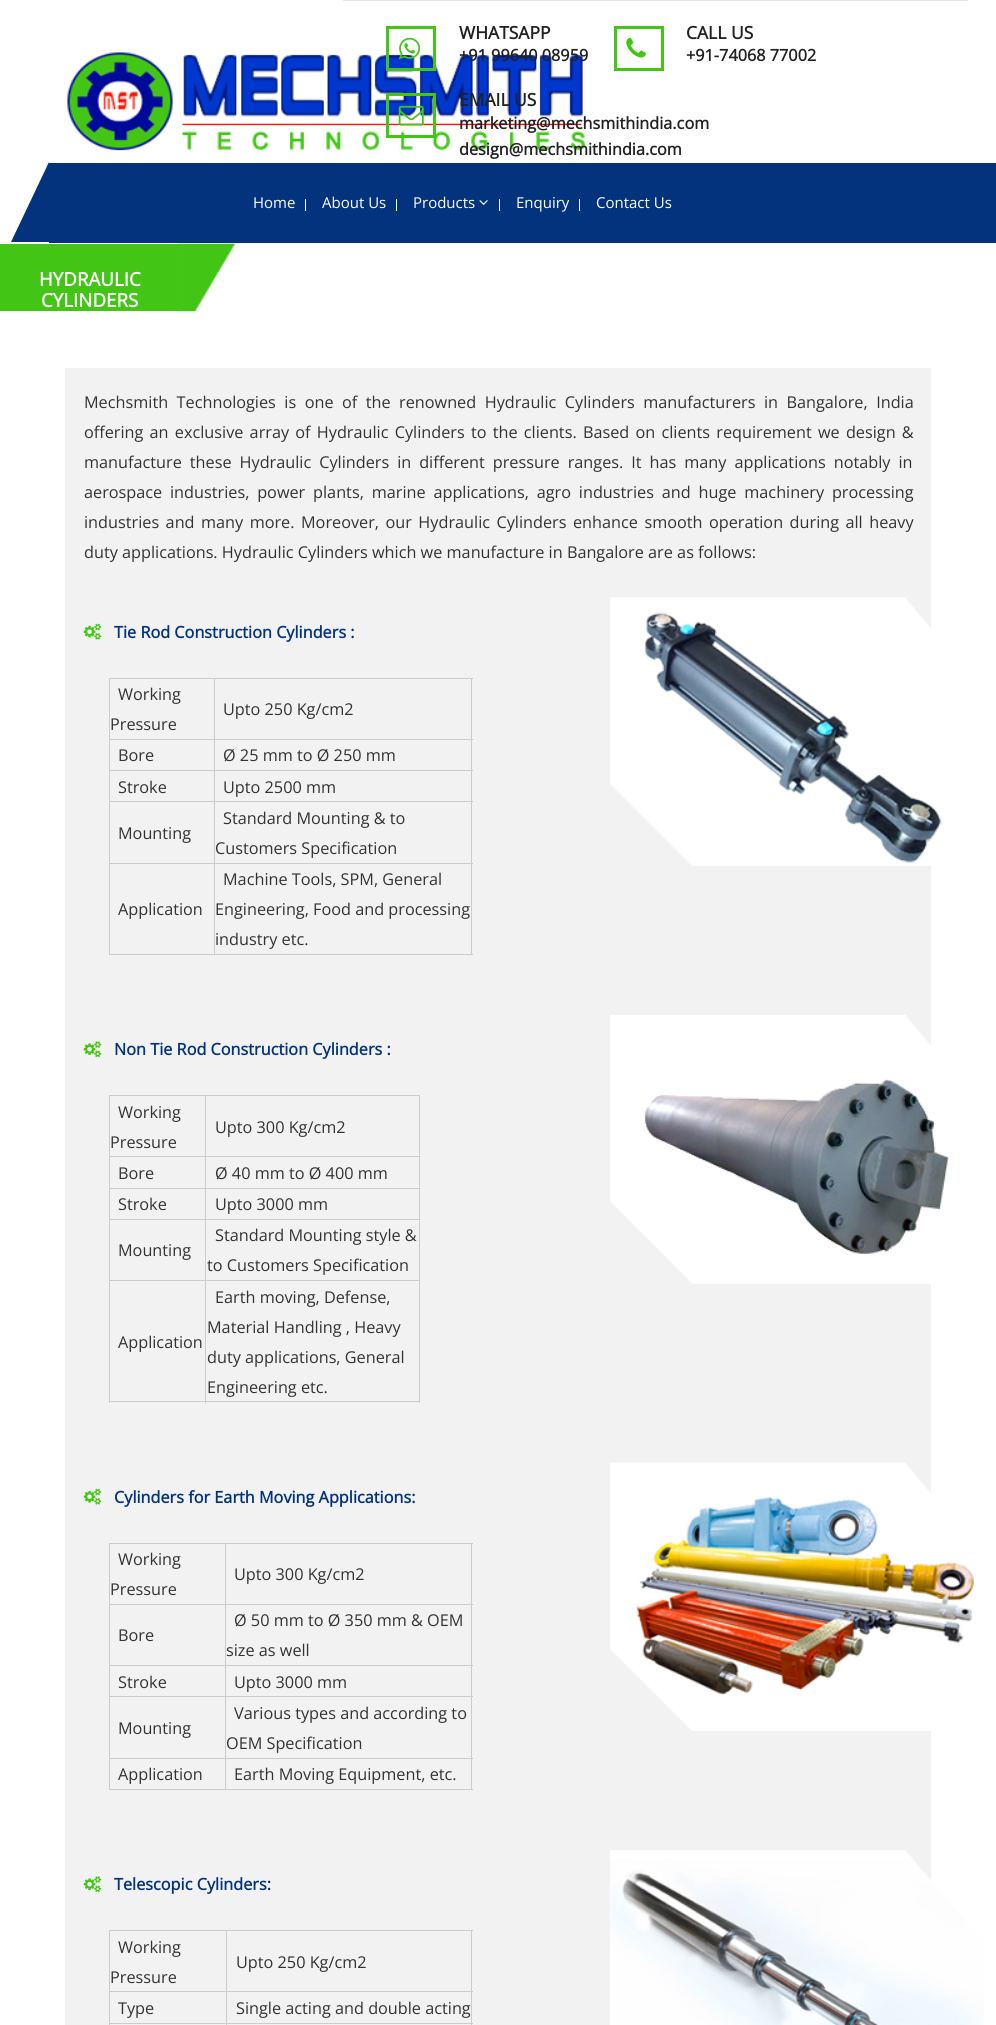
#include <cairo/cairo.h>
#include <math.h>
#include <stddef.h>

typedef struct { double x, y; const char *s; } line_t;
typedef struct { double x, y, w, h; unsigned color; } box_t;
static cairo_t *cr;

static void rgb(unsigned color)
{
	cairo_set_source_rgb(cr, (color >> 16) / 255.0, (color >> 8 & 255) / 255.0, (color & 255) / 255.0);
}

static void tracked(double x, double y, const char *s, double letter, double word)
{
	cairo_move_to(cr, x, y);
	while (*s) {
		char ch[5] = {0};
		int n = 0;
		do ch[n++] = *s++; while ((*s & 0xC0) == 0x80);
		cairo_show_text(cr, ch);
		cairo_rel_move_to(cr, letter + word * (*ch == ' '), 0);
	}
}

static void image(const char *path, double x, double y, double w, double h)
{
	cairo_surface_t *image = cairo_image_surface_create_from_png(path);
	cairo_save(cr);
	cairo_set_source_surface(cr, image, x, y);
	cairo_rectangle(cr, x, y, w, h);
	cairo_fill(cr);
	cairo_restore(cr);
	cairo_surface_destroy(image);
}

int main(void) {
	cairo_surface_t *surface = cairo_image_surface_create(CAIRO_FORMAT_RGB24, 996, 2025);
	cr = cairo_create(surface);
	cairo_font_options_t *options = cairo_font_options_create();
	cairo_font_options_set_hint_metrics(options, CAIRO_HINT_METRICS_OFF);
	cairo_font_options_set_hint_style(options, CAIRO_HINT_STYLE_NONE);
	cairo_set_font_options(cr, options);
	cairo_set_miter_limit(cr, 4);
	rgb(0xffffff);
	cairo_paint(cr);
	image("img/1.png", 67, 52, 519, 99);
	rgb(0xe7e7e7);
	cairo_rectangle(cr, 343, 0, 625, 1);
	cairo_fill(cr);
	cairo_rectangle(cr, 387.5, 27.5, 47, 42);
	rgb(0x43c516);
	cairo_set_line_width(cr, 3);
	cairo_stroke(cr);
	image("img/2.png", 398, 37, 23, 23);
	cairo_rectangle(cr, 615.5, 27.5, 47, 42);
	cairo_stroke(cr);
	image("img/3.png", 626, 37, 20, 21);
	cairo_rectangle(cr, 387.5, 94.5, 47, 42);
	cairo_stroke(cr);
	image("img/4.png", 398, 105, 26, 21);
	rgb(0x04337d);
	cairo_rectangle(cr, 49, 163, 947, 80);
	cairo_fill(cr);
	cairo_new_path(cr);
	cairo_move_to(cr, 49, 242);
	cairo_line_to(cr, 11, 242);
	cairo_line_to(cr, 49, 162);
	cairo_close_path(cr);
	cairo_fill(cr);
	rgb(0xffffff);
	cairo_rectangle(cr, 305, 199, 1, 12);
	cairo_fill(cr);
	cairo_rectangle(cr, 396, 199, 1, 12);
	cairo_fill(cr);
	image("img/5.png", 479, 200, 9, 5);
	{
		static const box_t items[] = {
			{499, 199, 1, 12, 0xffffff},
			{579, 199, 1, 12, 0xffffff},
			{0, 244, 179, 67, 0x43c516},
		};
		for (size_t i = 0; i < sizeof items / sizeof *items; i++) {
			rgb(items[i].color);
			cairo_rectangle(cr, items[i].x, items[i].y, items[i].w, items[i].h);
			cairo_fill(cr);
		}
	}
	image("img/6.png", 178, 243, 57, 69);
	rgb(0xf2f2f2);
	cairo_rectangle(cr, 65, 368, 866, 1657);
	cairo_fill(cr);
	image("img/7.png", 83, 623, 19, 17);
	{
		static const box_t items[] = {
			{214, 678, 259, 1, 0xcccccc},
			{214, 739, 259, 1, 0xcccccc},
			{214, 770, 259, 1, 0xcccccc},
			{214, 801, 259, 1, 0xcccccc},
			{214, 863, 259, 1, 0xcccccc},
			{471, 863, 1, 92, 0xcccccc},
			{214, 954, 259, 1, 0xcccccc},
			{214, 863, 1, 92, 0xcccccc},
			{109, 863, 106, 1, 0xcccccc},
			{214, 801, 1, 63, 0xcccccc},
			{109, 801, 106, 1, 0xcccccc},
			{214, 770, 1, 33, 0xcccccc},
			{109, 770, 106, 1, 0xcccccc},
			{214, 739, 1, 32, 0xcccccc},
			{109, 739, 106, 1, 0xcccccc},
			{214, 678, 1, 62, 0xcccccc},
			{109, 678, 106, 1, 0xcccccc},
			{109, 954, 106, 1, 0xcccccc},
			{109, 863, 1, 92, 0xcccccc},
			{109, 801, 1, 63, 0xcccccc},
			{109, 770, 1, 33, 0xcccccc},
			{109, 739, 1, 32, 0xcccccc},
			{109, 678, 1, 62, 0xcccccc},
			{471, 801, 1, 63, 0xcccccc},
			{471, 770, 1, 33, 0xcccccc},
			{471, 739, 1, 32, 0xcccccc},
			{471, 678, 1, 62, 0xcccccc},
		};
		for (size_t i = 0; i < sizeof items / sizeof *items; i++) {
			rgb(items[i].color);
			cairo_rectangle(cr, items[i].x, items[i].y, items[i].w, items[i].h);
			cairo_fill(cr);
		}
	}
	image("img/8.png", 610, 597, 332, 269);
	image("img/9.png", 83, 1041, 19, 17);
	{
		static const box_t items[] = {
			{205, 1095, 215, 1, 0xcccccc},
			{205, 1156, 215, 1, 0xcccccc},
			{205, 1188, 215, 1, 0xcccccc},
			{205, 1219, 215, 1, 0xcccccc},
			{205, 1280, 215, 1, 0xcccccc},
			{419, 1280, 1, 123, 0xcccccc},
			{205, 1401, 215, 1, 0xcccccc},
			{205, 1280, 1, 123, 0xcccccc},
			{109, 1280, 97, 1, 0xcccccc},
			{205, 1219, 1, 62, 0xcccccc},
			{109, 1219, 97, 1, 0xcccccc},
			{205, 1188, 1, 32, 0xcccccc},
			{109, 1188, 97, 1, 0xcccccc},
			{205, 1156, 1, 33, 0xcccccc},
			{109, 1156, 97, 1, 0xcccccc},
			{205, 1095, 1, 63, 0xcccccc},
			{109, 1095, 97, 1, 0xcccccc},
			{109, 1401, 97, 1, 0xcccccc},
			{109, 1280, 1, 123, 0xcccccc},
			{109, 1219, 1, 62, 0xcccccc},
			{109, 1188, 1, 32, 0xcccccc},
			{109, 1156, 1, 33, 0xcccccc},
			{109, 1095, 1, 63, 0xcccccc},
			{419, 1219, 1, 62, 0xcccccc},
			{419, 1188, 1, 32, 0xcccccc},
			{419, 1156, 1, 33, 0xcccccc},
			{419, 1095, 1, 63, 0xcccccc},
		};
		for (size_t i = 0; i < sizeof items / sizeof *items; i++) {
			rgb(items[i].color);
			cairo_rectangle(cr, items[i].x, items[i].y, items[i].w, items[i].h);
			cairo_fill(cr);
		}
	}
	image("img/10.png", 610, 1015, 339, 269);
	image("img/7.png", 83, 1488, 19, 17);
	{
		static const box_t items[] = {
			{225, 1543, 248, 1, 0xcccccc},
			{225, 1604, 248, 1, 0xcccccc},
			{225, 1665, 248, 1, 0xcccccc},
			{225, 1696, 248, 1, 0xcccccc},
			{225, 1758, 248, 1, 0xcccccc},
			{471, 1758, 1, 32, 0xcccccc},
			{225, 1789, 248, 1, 0xcccccc},
			{225, 1758, 1, 32, 0xcccccc},
			{109, 1758, 117, 1, 0xcccccc},
			{225, 1696, 1, 63, 0xcccccc},
			{109, 1696, 117, 1, 0xcccccc},
			{225, 1665, 1, 33, 0xcccccc},
			{109, 1665, 117, 1, 0xcccccc},
			{225, 1604, 1, 62, 0xcccccc},
			{109, 1604, 117, 1, 0xcccccc},
			{225, 1543, 1, 62, 0xcccccc},
			{109, 1543, 117, 1, 0xcccccc},
			{109, 1789, 117, 1, 0xcccccc},
			{109, 1758, 1, 32, 0xcccccc},
			{109, 1696, 1, 63, 0xcccccc},
			{109, 1665, 1, 33, 0xcccccc},
			{109, 1604, 1, 62, 0xcccccc},
			{109, 1543, 1, 62, 0xcccccc},
			{471, 1696, 1, 63, 0xcccccc},
			{471, 1665, 1, 33, 0xcccccc},
			{471, 1604, 1, 62, 0xcccccc},
			{471, 1543, 1, 62, 0xcccccc},
		};
		for (size_t i = 0; i < sizeof items / sizeof *items; i++) {
			rgb(items[i].color);
			cairo_rectangle(cr, items[i].x, items[i].y, items[i].w, items[i].h);
			cairo_fill(cr);
		}
	}
	image("img/11.png", 610, 1462, 365, 269);
	image("img/9.png", 83, 1876, 19, 17);
	{
		static const box_t items[] = {
			{226, 1930, 247, 1, 0xcccccc},
			{226, 1991, 247, 1, 0xcccccc},
			{226, 2023, 247, 1, 0xcccccc},
			{226, 2023, 1, 2, 0xcccccc},
			{109, 2023, 119, 1, 0xcccccc},
			{226, 1991, 1, 33, 0xcccccc},
			{109, 1991, 119, 1, 0xcccccc},
			{226, 1930, 1, 63, 0xcccccc},
			{109, 1930, 119, 1, 0xcccccc},
			{109, 2023, 1, 2, 0xcccccc},
			{109, 1991, 1, 33, 0xcccccc},
			{109, 1930, 1, 63, 0xcccccc},
			{471, 2023, 1, 2, 0xcccccc},
			{471, 1991, 1, 33, 0xcccccc},
			{471, 1930, 1, 63, 0xcccccc},
		};
		for (size_t i = 0; i < sizeof items / sizeof *items; i++) {
			rgb(items[i].color);
			cairo_rectangle(cr, items[i].x, items[i].y, items[i].w, items[i].h);
			cairo_fill(cr);
		}
	}
	image("img/12.png", 610, 1850, 374, 175);
	cairo_select_font_face(cr, "Open Sans", CAIRO_FONT_SLANT_NORMAL, CAIRO_FONT_WEIGHT_BOLD);
	cairo_set_font_size(cr, 17.5);
	rgb(0x222222);
	cairo_move_to(cr, 459, 39);
	cairo_show_text(cr, "WHATSAPP");
	cairo_set_font_size(cr, 16.25);
	cairo_move_to(cr, 459, 61);
	cairo_show_text(cr, "+91 99640 08959");
	cairo_set_font_size(cr, 17.5);
	cairo_move_to(cr, 686, 39);
	cairo_show_text(cr, "CALL US");
	cairo_set_font_size(cr, 16.25);
	cairo_move_to(cr, 686, 61);
	cairo_show_text(cr, "+91-74068 77002");
	cairo_set_font_size(cr, 17.5);
	cairo_move_to(cr, 459, 106);
	cairo_show_text(cr, "EMAIL US");
	cairo_set_font_size(cr, 16.25);
	cairo_move_to(cr, 459, 129);
	cairo_show_text(cr, "marketing@mechsmithindia.com");
	cairo_move_to(cr, 459, 155);
	cairo_show_text(cr, "design@mechsmithindia.com");
	cairo_select_font_face(cr, "Open Sans", CAIRO_FONT_SLANT_NORMAL, CAIRO_FONT_WEIGHT_NORMAL);
	cairo_set_font_size(cr, 15);
	rgb(0xffffff);
	{
		static const line_t items[] = {
			{253, 208, "Home"},
			{322, 208, "About Us"},
			{413, 208, "Products"},
			{516, 208, "Enquiry"},
			{596, 208, "Contact Us"},
		};
		for (size_t i = 0; i < sizeof items / sizeof *items; i++) {
			cairo_move_to(cr, items[i].x, items[i].y);
			cairo_show_text(cr, items[i].s);
		}
	}
	cairo_select_font_face(cr, "Open Sans", CAIRO_FONT_SLANT_NORMAL, CAIRO_FONT_WEIGHT_BOLD);
	cairo_set_font_size(cr, 18.75);
	cairo_move_to(cr, 39, 286);
	cairo_show_text(cr, "HYDRAULIC");
	cairo_move_to(cr, 41, 307);
	cairo_show_text(cr, "CYLINDERS");
	cairo_select_font_face(cr, "Open Sans", CAIRO_FONT_SLANT_NORMAL, CAIRO_FONT_WEIGHT_NORMAL);
	cairo_set_font_size(cr, 16.25);
	rgb(0x333333);
	tracked(84, 408, "Mechsmith Technologies is one of the renowned Hydraulic Cylinders manufacturers in Bangalore, India", 0, 4.25);
	tracked(84, 438, "offering an exclusive array of Hydraulic Cylinders to the clients. Based on clients requirement we design &", 0, 2);
	tracked(84, 468, "manufacture these Hydraulic Cylinders in different pressure ranges. It has many applications notably in", 0, 3.75);
	tracked(84, 498, "aerospace industries, power plants, marine applications, agro industries and huge machinery processing", 0, 3.6);
	tracked(84, 528, "industries and many more. Moreover, our Hydraulic Cylinders enhance smooth operation during all heavy", 0, 2.25);
	cairo_move_to(cr, 84, 558);
	cairo_show_text(cr, "duty applications. Hydraulic Cylinders which we manufacture in Bangalore are as follows:");
	cairo_select_font_face(cr, "Open Sans", CAIRO_FONT_SLANT_NORMAL, CAIRO_FONT_WEIGHT_BOLD);
	rgb(0x04337d);
	cairo_move_to(cr, 114, 638);
	cairo_show_text(cr, "Tie Rod Construction Cylinders :");
	cairo_select_font_face(cr, "Open Sans", CAIRO_FONT_SLANT_NORMAL, CAIRO_FONT_WEIGHT_NORMAL);
	rgb(0x333333);
	{
		static const line_t items[] = {
			{118, 700, "Working"},
			{110, 730, "Pressure"},
			{223, 715, "Upto 250 Kg/cm2"},
			{118, 761, "Bore"},
			{223, 761, "Ø 25 mm to Ø 250 mm"},
			{118, 793, "Stroke"},
			{223, 793, "Upto 2500 mm"},
			{118, 839, "Mounting"},
			{223, 824, "Standard Mounting & to"},
			{215, 854, "Customers Specification"},
			{118, 915, "Application"},
			{223, 885, "Machine Tools, SPM, General"},
			{215, 915, "Engineering, Food and processing"},
			{215, 945, "industry etc."},
		};
		for (size_t i = 0; i < sizeof items / sizeof *items; i++) {
			cairo_move_to(cr, items[i].x, items[i].y);
			cairo_show_text(cr, items[i].s);
		}
	}
	cairo_select_font_face(cr, "Open Sans", CAIRO_FONT_SLANT_NORMAL, CAIRO_FONT_WEIGHT_BOLD);
	rgb(0x04337d);
	cairo_move_to(cr, 114, 1055);
	cairo_show_text(cr, "Non Tie Rod Construction Cylinders :");
	cairo_select_font_face(cr, "Open Sans", CAIRO_FONT_SLANT_NORMAL, CAIRO_FONT_WEIGHT_NORMAL);
	rgb(0x333333);
	{
		static const line_t items[] = {
			{118, 1118, "Working"},
			{110, 1148, "Pressure"},
			{215, 1133, "Upto 300 Kg/cm2"},
			{118, 1179, "Bore"},
			{215, 1179, "Ø 40 mm to Ø 400 mm"},
			{118, 1210, "Stroke"},
			{215, 1210, "Upto 3000 mm"},
			{118, 1256, "Mounting"},
			{215, 1241, "Standard Mounting style &"},
			{207, 1271, "to Customers Specification"},
			{118, 1348, "Application"},
			{215, 1303, "Earth moving, Defense,"},
			{207, 1333, "Material Handling , Heavy"},
			{207, 1363, "duty applications, General"},
			{207, 1393, "Engineering etc."},
		};
		for (size_t i = 0; i < sizeof items / sizeof *items; i++) {
			cairo_move_to(cr, items[i].x, items[i].y);
			cairo_show_text(cr, items[i].s);
		}
	}
	cairo_select_font_face(cr, "Open Sans", CAIRO_FONT_SLANT_NORMAL, CAIRO_FONT_WEIGHT_BOLD);
	rgb(0x04337d);
	cairo_move_to(cr, 114, 1503);
	cairo_show_text(cr, "Cylinders for Earth Moving Applications:");
	cairo_select_font_face(cr, "Open Sans", CAIRO_FONT_SLANT_NORMAL, CAIRO_FONT_WEIGHT_NORMAL);
	rgb(0x333333);
	{
		static const line_t items[] = {
			{118, 1565, "Working"},
			{110, 1595, "Pressure"},
			{234, 1580, "Upto 300 Kg/cm2"},
			{118, 1641, "Bore"},
			{234, 1626, "Ø 50 mm to Ø 350 mm & OEM"},
			{226, 1656, "size as well"},
			{118, 1688, "Stroke"},
			{234, 1688, "Upto 3000 mm"},
			{118, 1734, "Mounting"},
			{234, 1719, "Various types and according to"},
			{226, 1749, "OEM Specification"},
			{118, 1780, "Application"},
			{234, 1780, "Earth Moving Equipment, etc."},
		};
		for (size_t i = 0; i < sizeof items / sizeof *items; i++) {
			cairo_move_to(cr, items[i].x, items[i].y);
			cairo_show_text(cr, items[i].s);
		}
	}
	cairo_select_font_face(cr, "Open Sans", CAIRO_FONT_SLANT_NORMAL, CAIRO_FONT_WEIGHT_BOLD);
	rgb(0x04337d);
	cairo_move_to(cr, 114, 1890);
	cairo_show_text(cr, "Telescopic Cylinders:");
	cairo_select_font_face(cr, "Open Sans", CAIRO_FONT_SLANT_NORMAL, CAIRO_FONT_WEIGHT_NORMAL);
	rgb(0x333333);
	{
		static const line_t items[] = {
			{118, 1953, "Working"},
			{110, 1983, "Pressure"},
			{236, 1968, "Upto 250 Kg/cm2"},
			{118, 2014, "Type"},
			{236, 2014, "Single acting and double acting"},
		};
		for (size_t i = 0; i < sizeof items / sizeof *items; i++) {
			cairo_move_to(cr, items[i].x, items[i].y);
			cairo_show_text(cr, items[i].s);
		}
	}
	cairo_surface_write_to_png(surface, "page.png");
	cairo_font_options_destroy(options);
	cairo_destroy(cr);
	cairo_surface_destroy(surface);
	return 0;
}
